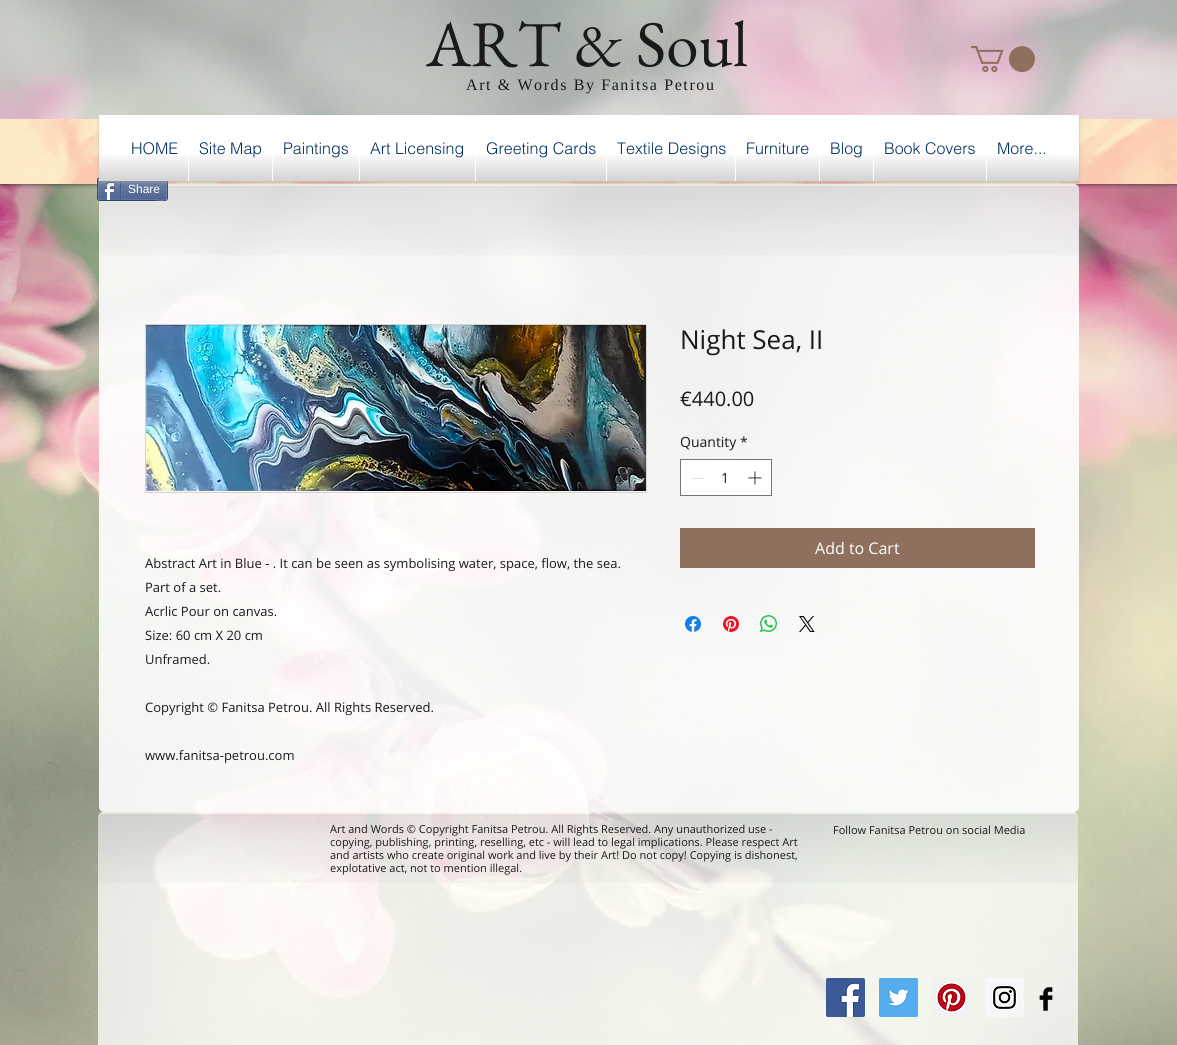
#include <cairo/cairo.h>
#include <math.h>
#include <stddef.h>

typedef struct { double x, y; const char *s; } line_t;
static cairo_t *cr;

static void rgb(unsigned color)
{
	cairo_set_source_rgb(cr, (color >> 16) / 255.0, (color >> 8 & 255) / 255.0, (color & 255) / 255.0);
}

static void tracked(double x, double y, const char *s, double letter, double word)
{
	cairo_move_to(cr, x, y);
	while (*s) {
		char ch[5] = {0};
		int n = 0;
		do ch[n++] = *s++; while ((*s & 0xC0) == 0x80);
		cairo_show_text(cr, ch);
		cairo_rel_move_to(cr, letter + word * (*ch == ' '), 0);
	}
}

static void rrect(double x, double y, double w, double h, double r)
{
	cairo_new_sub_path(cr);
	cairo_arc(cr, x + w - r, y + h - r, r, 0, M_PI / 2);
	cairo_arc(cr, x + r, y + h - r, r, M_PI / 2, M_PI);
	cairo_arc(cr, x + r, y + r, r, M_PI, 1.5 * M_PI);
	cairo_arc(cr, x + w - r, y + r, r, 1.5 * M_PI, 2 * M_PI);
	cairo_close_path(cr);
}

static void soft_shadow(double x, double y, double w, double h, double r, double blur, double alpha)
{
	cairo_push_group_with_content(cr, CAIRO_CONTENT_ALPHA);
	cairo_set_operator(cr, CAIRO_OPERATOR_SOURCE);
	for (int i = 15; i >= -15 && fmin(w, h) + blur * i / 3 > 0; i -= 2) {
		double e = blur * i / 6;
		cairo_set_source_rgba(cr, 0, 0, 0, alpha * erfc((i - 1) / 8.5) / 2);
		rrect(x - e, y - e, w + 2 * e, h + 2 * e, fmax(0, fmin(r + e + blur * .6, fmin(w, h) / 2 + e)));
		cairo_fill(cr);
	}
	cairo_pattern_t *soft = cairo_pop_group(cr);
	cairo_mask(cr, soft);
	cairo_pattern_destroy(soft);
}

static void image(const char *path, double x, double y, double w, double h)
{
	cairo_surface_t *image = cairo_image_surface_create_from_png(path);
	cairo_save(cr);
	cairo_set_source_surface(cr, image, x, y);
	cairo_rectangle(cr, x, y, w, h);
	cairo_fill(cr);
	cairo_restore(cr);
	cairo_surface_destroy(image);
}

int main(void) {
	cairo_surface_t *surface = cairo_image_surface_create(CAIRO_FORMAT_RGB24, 1177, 1045);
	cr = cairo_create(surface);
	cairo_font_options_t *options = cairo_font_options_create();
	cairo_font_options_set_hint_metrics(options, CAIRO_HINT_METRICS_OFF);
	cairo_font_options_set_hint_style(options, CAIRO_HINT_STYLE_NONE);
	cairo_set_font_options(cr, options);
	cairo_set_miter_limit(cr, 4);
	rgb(0xffffff);
	cairo_paint(cr);
	image("img/1.png", 0, 0, 1177, 1045);
	cairo_save(cr);
	cairo_rectangle(cr, 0, 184, 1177, 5);
	cairo_clip(cr);
	rgb(0x000000);
	soft_shadow(0, 0, 1177, 184, 0, 2.5, 0.7);
	cairo_restore(cr);
	cairo_set_source_rgba(cr, 1, 1, 1, 0.6);
	cairo_rectangle(cr, 0, 0, 1177, 119);
	cairo_fill(cr);
	image("img/2.png", 971, 46, 64, 27);
	rgb(0xfafaeb);
	cairo_rectangle(cr, 0, 119, 1177, 65);
	cairo_fill(cr);
	image("img/3.png", 0, 119, 1177, 65);
	cairo_set_source_rgba(cr, 1, 1, 1, 0.9);
	rrect(99, 184, 980, 628, 5);
	cairo_fill(cr);
	image("img/27.png", 99, 186, 980, 69);
	rrect(97.5, 177.5, 70, 23, 2.5);
	rgb(0x2d4565);
	cairo_set_line_width(cr, 1);
	cairo_stroke(cr);
	image("img/25.png", 98, 179, 69, 21);
	cairo_new_path(cr);
	cairo_move_to(cr, 166, 179);
	cairo_curve_to(cr, 167, 179.5, 167, 198.5, 166, 199);
	rgb(0x6f83ad);
	cairo_stroke(cr);
	cairo_new_path(cr);
	cairo_move_to(cr, 166, 199);
	cairo_curve_to(cr, 163, 202, 158, 199.5, 154, 199.5);
	cairo_line_to(cr, 99, 199);
	rgb(0x6176a3);
	cairo_stroke(cr);
	cairo_new_path(cr);
	cairo_move_to(cr, 99, 199);
	cairo_curve_to(cr, 98, 198.5, 98, 179.5, 99, 179);
	rgb(0x6f83ad);
	cairo_stroke(cr);
	image("img/26.png", 104, 182, 10, 18);
	rgb(0x425e85);
	cairo_rectangle(cr, 120, 179, 1, 21);
	cairo_fill(cr);
	rgb(0x6176a3);
	cairo_rectangle(cr, 121, 179, 1, 20);
	cairo_fill(cr);
	rgb(0xa29e9e);
	soft_shadow(99, 117, 980, 66, 0, 1.5, 0.6);
	rgb(0xffffff);
	cairo_rectangle(cr, 99, 115, 980, 66);
	cairo_fill(cr);
	image("img/4.png", 99, 155, 980, 26);
	cairo_rectangle(cr, 121, 155, 936, 26);
	cairo_fill(cr);
	image("img/6.png", 121, 155, 67, 26);
	image("img/18.png", 736, 155, 83, 26);
	image("img/22.png", 874, 155, 112, 26);
	image("img/24.png", 987, 155, 70, 26);
	cairo_rectangle(cr, 680.5, 459.5, 91, 36);
	cairo_fill_preserve(cr);
	rgb(0x767676);
	cairo_stroke(cr);
	rgb(0xe3e3e3);
	cairo_rectangle(cr, 692, 478, 13, 1);
	cairo_fill(cr);
	image("img/28.png", 748, 471, 14, 14);
	rgb(0x8f705e);
	cairo_rectangle(cr, 680, 528, 355, 40);
	cairo_fill(cr);
	image("img/29.png", 685, 616, 16, 16);
	image("img/30.png", 723, 616, 16, 16);
	image("img/31.png", 760, 615, 17, 17);
	image("img/32.png", 799, 616, 16, 16);
	cairo_rectangle(cr, 145.5, 324.5, 501, 168);
	rgb(0xd4d3d3);
	cairo_stroke(cr);
	image("img/33.png", 146, 325, 500, 166);
	cairo_set_source_rgba(cr, 1, 1, 1, 0.75);
	rrect(98, 812, 980, 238, 5);
	cairo_fill(cr);
	image("img/34.png", 98, 814, 980, 69);
	image("img/35.png", 826, 978, 39, 39);
	image("img/36.png", 879, 978, 39, 39);
	image("img/37.png", 932, 978, 39, 39);
	image("img/38.png", 985, 978, 39, 39);
	image("img/39.png", 1039, 987, 14, 24);
	cairo_select_font_face(cr, "EB Garamond", CAIRO_FONT_SLANT_NORMAL, CAIRO_FONT_WEIGHT_NORMAL);
	cairo_set_font_size(cr, 65);
	rgb(0x1a1a1a);
	cairo_move_to(cr, 426, 66);
	cairo_show_text(cr, "ART & Soul");
	cairo_select_font_face(cr, "Liberation Serif", CAIRO_FONT_SLANT_NORMAL, CAIRO_FONT_WEIGHT_NORMAL);
	cairo_set_font_size(cr, 16);
	tracked(466, 90, "Art & Words By Fanitsa Petrou", 1.6, 0);
	cairo_select_font_face(cr, "helvetica Light", CAIRO_FONT_SLANT_NORMAL, CAIRO_FONT_WEIGHT_NORMAL);
	rgb(0x002e5d);
	cairo_move_to(cr, 131, 154);
	cairo_show_text(cr, "HOME");
	image("img/5.png", 132, 142, 45, 6);
	cairo_move_to(cr, 199, 154);
	cairo_show_text(cr, "Site Map");
	image("img/8.png", 189, 155, 83, 26);
	image("img/7.png", 199, 142, 61, 6);
	cairo_move_to(cr, 283, 154);
	cairo_show_text(cr, "Paintings");
	image("img/10.png", 273, 155, 86, 26);
	image("img/9.png", 284, 142, 63, 6);
	cairo_move_to(cr, 370, 154);
	cairo_show_text(cr, "Art Licensing");
	image("img/12.png", 360, 155, 115, 26);
	image("img/11.png", 373, 142, 90, 6);
	cairo_move_to(cr, 486, 154);
	cairo_show_text(cr, "Greeting Cards");
	image("img/14.png", 476, 155, 130, 26);
	image("img/13.png", 487, 142, 107, 6);
	cairo_move_to(cr, 617, 154);
	cairo_show_text(cr, "Textile Designs");
	image("img/16.png", 607, 155, 128, 26);
	image("img/15.png", 617, 142, 108, 6);
	cairo_move_to(cr, 746, 154);
	cairo_show_text(cr, "Furniture");
	image("img/17.png", 747, 142, 60, 6);
	cairo_move_to(cr, 830, 154);
	cairo_show_text(cr, "Blog");
	image("img/20.png", 820, 155, 53, 26);
	image("img/19.png", 831, 142, 30, 6);
	cairo_move_to(cr, 884, 154);
	cairo_show_text(cr, "Book Covers");
	image("img/21.png", 885, 142, 89, 6);
	cairo_move_to(cr, 997, 154);
	cairo_show_text(cr, "More...");
	image("img/23.png", 998, 142, 34, 6);
	cairo_select_font_face(cr, "Liberation Sans", CAIRO_FONT_SLANT_NORMAL, CAIRO_FONT_WEIGHT_NORMAL);
	cairo_set_font_size(cr, 12);
	rgb(0xffffff);
	cairo_move_to(cr, 128, 193);
	cairo_show_text(cr, "Share");
	cairo_select_font_face(cr, "Open Sans", CAIRO_FONT_SLANT_NORMAL, CAIRO_FONT_WEIGHT_NORMAL);
	cairo_set_font_size(cr, 26);
	rgb(0x1a1a1a);
	cairo_move_to(cr, 680, 349);
	cairo_show_text(cr, "Night Sea, II");
	cairo_set_font_size(cr, 20);
	cairo_move_to(cr, 680, 406);
	cairo_show_text(cr, "€440.00");
	cairo_set_font_size(cr, 14);
	{
		static const line_t items[] = {
			{680, 447, "Quantity"},
			{740, 447, "*"},
			{721, 483, "1"},
		};
		for (size_t i = 0; i < sizeof items / sizeof *items; i++) {
			cairo_move_to(cr, items[i].x, items[i].y);
			cairo_show_text(cr, items[i].s);
		}
	}
	cairo_set_font_size(cr, 16);
	rgb(0xffffff);
	cairo_move_to(cr, 815, 554);
	cairo_show_text(cr, "Add to Cart");
	cairo_set_font_size(cr, 13);
	rgb(0x1a1a1a);
	{
		static const line_t items[] = {
			{145, 568, "Abstract Art in Blue - . It can be seen as symbolising water, space, flow, the sea."},
			{145, 592, "Part of a set."},
			{145, 616, "Acrlic Pour on canvas."},
			{145, 640, "Size: 60 cm X 20 cm"},
			{145, 664, "Unframed."},
			{145, 712, "Copyright © Fanitsa Petrou. All Rights Reserved."},
			{145, 760, "www.fanitsa-petrou.com"},
		};
		for (size_t i = 0; i < sizeof items / sizeof *items; i++) {
			cairo_move_to(cr, items[i].x, items[i].y);
			cairo_show_text(cr, items[i].s);
		}
	}
	cairo_set_font_size(cr, 11);
	{
		static const line_t items[] = {
			{330, 833, "Art and Words © Copyright Fanitsa Petrou. All Rights Reserved. Any unauthorized use -"},
			{330, 846, "copying, publishing, printing, reselling, etc - will lead to legal implications. Please respect Art"},
			{330, 859, "and artists who create original work and live by their Art! Do not copy! Copying is dishonest,"},
			{330, 872, "explotative act, not to mention illegal."},
			{833, 834, "Follow Fanitsa Petrou on social Media"},
		};
		for (size_t i = 0; i < sizeof items / sizeof *items; i++) {
			cairo_move_to(cr, items[i].x, items[i].y);
			cairo_show_text(cr, items[i].s);
		}
	}
	cairo_surface_write_to_png(surface, "page.png");
	cairo_font_options_destroy(options);
	cairo_destroy(cr);
	cairo_surface_destroy(surface);
	return 0;
}
